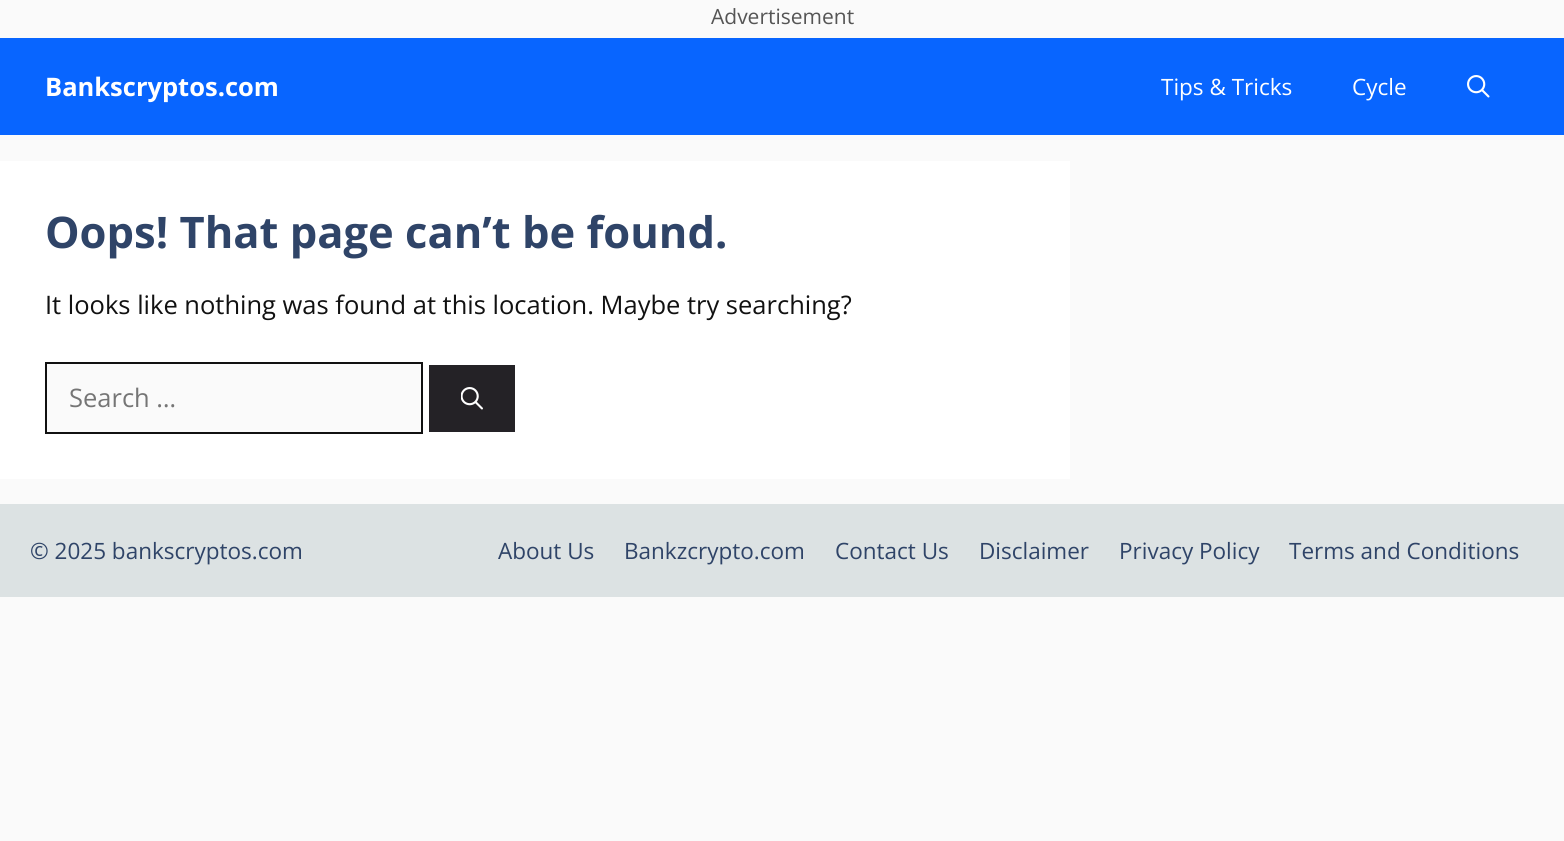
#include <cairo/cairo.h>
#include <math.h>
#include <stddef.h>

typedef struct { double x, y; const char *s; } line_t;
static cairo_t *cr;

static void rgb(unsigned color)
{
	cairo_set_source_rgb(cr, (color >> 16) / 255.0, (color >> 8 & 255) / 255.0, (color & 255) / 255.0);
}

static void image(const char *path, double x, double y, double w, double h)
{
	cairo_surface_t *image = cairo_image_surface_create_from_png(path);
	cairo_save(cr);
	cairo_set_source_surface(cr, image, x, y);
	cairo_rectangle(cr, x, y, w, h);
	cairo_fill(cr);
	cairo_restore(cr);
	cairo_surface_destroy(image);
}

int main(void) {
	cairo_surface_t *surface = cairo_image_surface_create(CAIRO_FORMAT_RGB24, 1564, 841);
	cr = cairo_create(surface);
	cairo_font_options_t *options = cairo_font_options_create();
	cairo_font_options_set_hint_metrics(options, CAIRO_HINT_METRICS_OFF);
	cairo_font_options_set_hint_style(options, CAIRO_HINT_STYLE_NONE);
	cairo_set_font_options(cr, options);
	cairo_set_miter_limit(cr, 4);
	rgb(0xfafafa);
	cairo_paint(cr);
	rgb(0x0865ff);
	cairo_rectangle(cr, 0, 38, 1564, 97);
	cairo_fill(cr);
	image("img/1.png", 1467, 75, 23, 23);
	rgb(0xffffff);
	cairo_rectangle(cr, 0, 161, 1070, 318);
	cairo_fill(cr);
	rgb(0xfafafa);
	cairo_rectangle(cr, 46, 363, 376, 70);
	cairo_fill_preserve(cr);
	rgb(0x111111);
	cairo_stroke(cr);
	rgb(0x242226);
	cairo_rectangle(cr, 429, 365, 86, 67);
	cairo_fill(cr);
	image("img/2.png", 461, 387, 22, 23);
	rgb(0xdce2e3);
	cairo_rectangle(cr, 0, 504, 1564, 93);
	cairo_fill(cr);
	cairo_select_font_face(cr, "Open Sans", CAIRO_FONT_SLANT_NORMAL, CAIRO_FONT_WEIGHT_NORMAL);
	cairo_set_font_size(cr, 21);
	rgb(0x555555);
	cairo_move_to(cr, 711, 24);
	cairo_show_text(cr, "Advertisement");
	cairo_select_font_face(cr, "Open Sans", CAIRO_FONT_SLANT_NORMAL, CAIRO_FONT_WEIGHT_BOLD);
	cairo_set_font_size(cr, 25.5);
	rgb(0xffffff);
	cairo_move_to(cr, 45, 96);
	cairo_show_text(cr, "Bankscryptos.com");
	cairo_select_font_face(cr, "Open Sans", CAIRO_FONT_SLANT_NORMAL, CAIRO_FONT_WEIGHT_NORMAL);
	cairo_set_font_size(cr, 22.5);
	cairo_move_to(cr, 1161, 95);
	cairo_show_text(cr, "Tips & Tricks");
	cairo_move_to(cr, 1352, 95);
	cairo_show_text(cr, "Cycle");
	cairo_select_font_face(cr, "Open Sans", CAIRO_FONT_SLANT_NORMAL, CAIRO_FONT_WEIGHT_BOLD);
	cairo_set_font_size(cr, 43.5);
	rgb(0x2f4468);
	cairo_move_to(cr, 45, 248);
	cairo_show_text(cr, "Oops! That page can’t be found.");
	cairo_select_font_face(cr, "Open Sans", CAIRO_FONT_SLANT_NORMAL, CAIRO_FONT_WEIGHT_NORMAL);
	cairo_set_font_size(cr, 25.5);
	rgb(0x111111);
	cairo_move_to(cr, 45, 314);
	cairo_show_text(cr, "It looks like nothing was found at this location. Maybe try searching?");
	rgb(0x757575);
	cairo_move_to(cr, 69, 407);
	cairo_show_text(cr, "Search …");
	cairo_set_font_size(cr, 22.5);
	rgb(0x2f4468);
	{
		static const line_t items[] = {
			{30, 559, "© 2025 bankscryptos.com"},
			{498, 559, "About Us"},
			{624, 559, "Bankzcrypto.com"},
			{835, 559, "Contact Us"},
			{979, 559, "Disclaimer"},
			{1119, 559, "Privacy Policy"},
			{1289, 559, "Terms and Conditions"},
		};
		for (size_t i = 0; i < sizeof items / sizeof *items; i++) {
			cairo_move_to(cr, items[i].x, items[i].y);
			cairo_show_text(cr, items[i].s);
		}
	}
	cairo_surface_write_to_png(surface, "page.png");
	cairo_font_options_destroy(options);
	cairo_destroy(cr);
	cairo_surface_destroy(surface);
	return 0;
}
